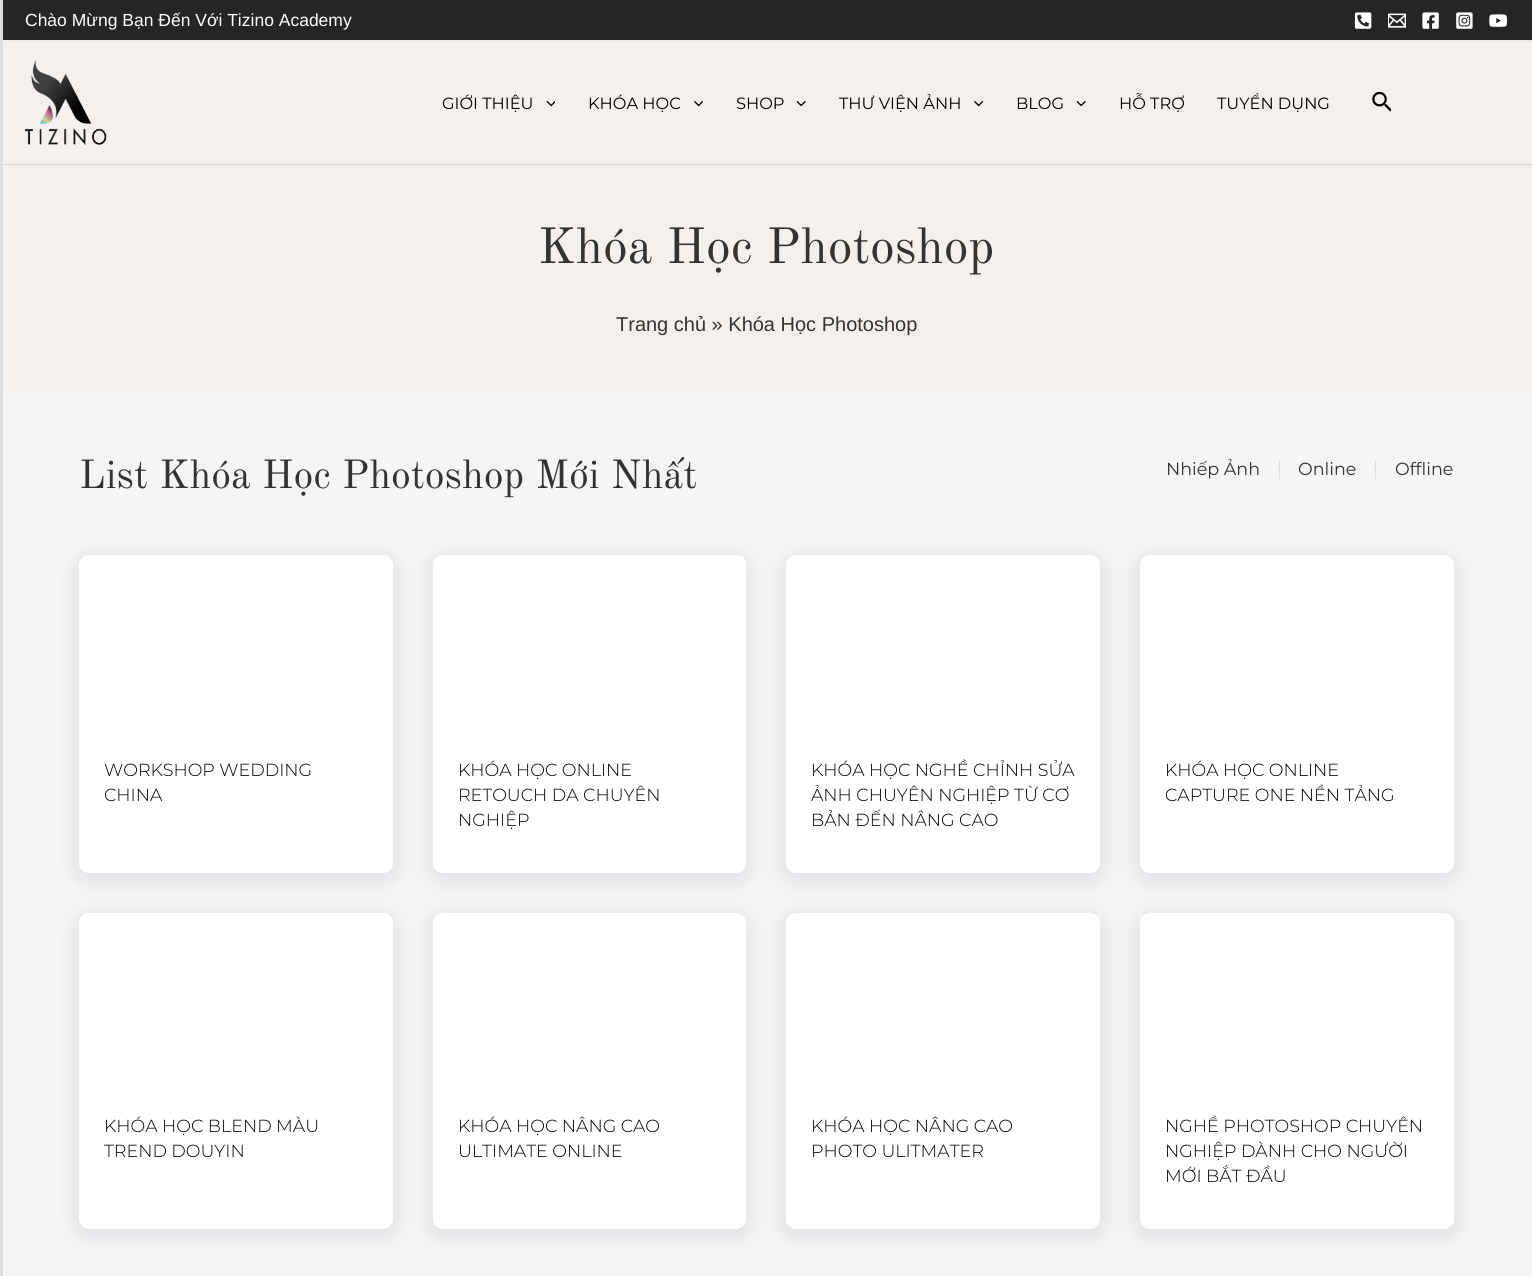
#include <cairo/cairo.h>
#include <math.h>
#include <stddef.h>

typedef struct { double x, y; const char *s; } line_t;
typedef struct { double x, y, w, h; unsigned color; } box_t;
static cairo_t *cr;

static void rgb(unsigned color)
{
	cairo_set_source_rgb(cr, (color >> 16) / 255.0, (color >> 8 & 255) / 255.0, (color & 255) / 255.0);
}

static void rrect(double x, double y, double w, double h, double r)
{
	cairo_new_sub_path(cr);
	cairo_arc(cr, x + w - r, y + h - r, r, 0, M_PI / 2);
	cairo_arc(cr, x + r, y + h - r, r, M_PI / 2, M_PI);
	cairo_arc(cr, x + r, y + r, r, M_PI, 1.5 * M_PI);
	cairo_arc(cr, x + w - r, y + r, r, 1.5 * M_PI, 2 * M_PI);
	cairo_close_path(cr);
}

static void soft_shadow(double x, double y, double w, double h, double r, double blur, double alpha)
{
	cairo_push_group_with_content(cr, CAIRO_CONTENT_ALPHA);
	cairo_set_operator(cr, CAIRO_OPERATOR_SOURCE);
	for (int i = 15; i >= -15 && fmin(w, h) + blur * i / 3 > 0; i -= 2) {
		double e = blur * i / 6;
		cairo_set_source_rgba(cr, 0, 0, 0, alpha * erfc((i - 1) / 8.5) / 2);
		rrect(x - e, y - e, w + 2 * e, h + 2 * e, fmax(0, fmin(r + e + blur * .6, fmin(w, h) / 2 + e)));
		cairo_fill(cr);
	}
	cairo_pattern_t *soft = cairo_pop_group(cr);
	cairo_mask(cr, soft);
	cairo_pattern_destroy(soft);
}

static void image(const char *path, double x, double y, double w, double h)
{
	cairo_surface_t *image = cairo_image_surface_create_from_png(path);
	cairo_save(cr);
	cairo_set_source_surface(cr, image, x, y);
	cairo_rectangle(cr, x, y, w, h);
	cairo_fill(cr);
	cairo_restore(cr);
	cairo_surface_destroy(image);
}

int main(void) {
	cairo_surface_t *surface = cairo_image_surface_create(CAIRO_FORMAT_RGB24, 1532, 1276);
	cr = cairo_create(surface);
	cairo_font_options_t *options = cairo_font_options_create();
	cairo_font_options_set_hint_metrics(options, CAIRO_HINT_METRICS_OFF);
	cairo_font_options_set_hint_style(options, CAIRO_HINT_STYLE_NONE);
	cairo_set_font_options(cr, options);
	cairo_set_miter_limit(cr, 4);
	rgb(0xf5f5f5);
	cairo_paint(cr);
	{
		static const box_t items[] = {
			{0, 40, 1532, 1, 0xeaeaea},
			{0, 164, 1532, 1, 0xd3d3d3},
			{0, 0, 3, 1276, 0xdddddd},
			{3, 0, 1529, 40, 0x252526},
		};
		for (size_t i = 0; i < sizeof items / sizeof *items; i++) {
			rgb(items[i].color);
			cairo_rectangle(cr, items[i].x, items[i].y, items[i].w, items[i].h);
			cairo_fill(cr);
		}
	}
	image("img/1.png", 1354, 12, 18, 17);
	image("img/2.png", 1388, 13, 18, 15);
	image("img/3.png", 1422, 12, 17, 17);
	image("img/4.png", 1456, 12, 17, 17);
	image("img/5.png", 1489, 14, 18, 13);
	rgb(0xf4f0ed);
	cairo_rectangle(cr, 3, 41, 1529, 123);
	cairo_fill(cr);
	image("img/6.png", 25, 60, 82, 85);
	image("img/7.png", 546, 100, 9, 7);
	image("img/8.png", 694, 100, 9, 7);
	image("img/9.png", 796, 100, 10, 7);
	image("img/10.png", 974, 100, 10, 7);
	image("img/9.png", 1076, 100, 10, 7);
	image("img/11.png", 1372, 91, 19, 21);
	{
		static const box_t items[] = {
			{3, 165, 1529, 226, 0xf4f0ed},
			{1279, 460, 1, 19, 0xdddddd},
			{1375, 460, 1, 19, 0xdddddd},
		};
		for (size_t i = 0; i < sizeof items / sizeof *items; i++) {
			rgb(items[i].color);
			cairo_rectangle(cr, items[i].x, items[i].y, items[i].w, items[i].h);
			cairo_fill(cr);
		}
	}
	rgb(0x273965);
	soft_shadow(74, 555, 324, 328, 15, 9.5, 0.1);
	rgb(0xffffff);
	rrect(79, 555, 314, 318, 10);
	cairo_fill(cr);
	rgb(0x273965);
	soft_shadow(428, 555, 323, 328, 15, 9.5, 0.1);
	rgb(0xffffff);
	rrect(433, 555, 313, 318, 10);
	cairo_fill(cr);
	rgb(0x273965);
	soft_shadow(781, 555, 324, 328, 15, 9.5, 0.1);
	rgb(0xffffff);
	rrect(786, 555, 314, 318, 10);
	cairo_fill(cr);
	rgb(0x273965);
	soft_shadow(1135, 555, 324, 328, 15, 9.5, 0.1);
	rgb(0xffffff);
	rrect(1140, 555, 314, 318, 10);
	cairo_fill(cr);
	rgb(0x273965);
	soft_shadow(74, 913, 324, 326, 15, 9.5, 0.1);
	rgb(0xffffff);
	rrect(79, 913, 314, 316, 10);
	cairo_fill(cr);
	rgb(0x273965);
	soft_shadow(428, 913, 323, 326, 15, 9.5, 0.1);
	rgb(0xffffff);
	rrect(433, 913, 313, 316, 10);
	cairo_fill(cr);
	rgb(0x273965);
	soft_shadow(781, 913, 324, 326, 15, 9.5, 0.1);
	rgb(0xffffff);
	rrect(786, 913, 314, 316, 10);
	cairo_fill(cr);
	rgb(0x273965);
	soft_shadow(1135, 913, 324, 326, 15, 9.5, 0.1);
	rgb(0xffffff);
	rrect(1140, 913, 314, 316, 10);
	cairo_fill(cr);
	cairo_select_font_face(cr, "Liberation Sans", CAIRO_FONT_SLANT_NORMAL, CAIRO_FONT_WEIGHT_NORMAL);
	cairo_set_font_size(cr, 17.5);
	cairo_move_to(cr, 25, 26);
	cairo_show_text(cr, "Chào Mừng Bạn Đến Với Tizino Academy");
	cairo_select_font_face(cr, "Montserrat", CAIRO_FONT_SLANT_NORMAL, CAIRO_FONT_WEIGHT_NORMAL);
	cairo_set_font_size(cr, 16.25);
	rgb(0x000000);
	{
		static const line_t items[] = {
			{442, 109, "GIỚI THIỆU"},
			{588, 109, "KHÓA HỌC"},
			{736, 109, "SHOP"},
			{839, 109, "THƯ VIỆN ẢNH"},
			{1016, 109, "BLOG"},
			{1119, 109, "HỖ TRỢ"},
			{1217, 109, "TUYỂN DỤNG"},
		};
		for (size_t i = 0; i < sizeof items / sizeof *items; i++) {
			cairo_move_to(cr, items[i].x, items[i].y);
			cairo_show_text(cr, items[i].s);
		}
	}
	cairo_select_font_face(cr, "Old Standard TT", CAIRO_FONT_SLANT_NORMAL, CAIRO_FONT_WEIGHT_NORMAL);
	cairo_set_font_size(cr, 50);
	rgb(0x333333);
	cairo_move_to(cr, 538, 263);
	cairo_show_text(cr, "Khóa Học Photoshop");
	cairo_select_font_face(cr, "Liberation Sans", CAIRO_FONT_SLANT_NORMAL, CAIRO_FONT_WEIGHT_NORMAL);
	cairo_set_font_size(cr, 20);
	cairo_move_to(cr, 616, 331);
	cairo_show_text(cr, "Trang chủ » Khóa Học Photoshop");
	cairo_select_font_face(cr, "Old Standard TT", CAIRO_FONT_SLANT_NORMAL, CAIRO_FONT_WEIGHT_NORMAL);
	cairo_set_font_size(cr, 40);
	cairo_move_to(cr, 79, 488);
	cairo_show_text(cr, "List Khóa Học Photoshop Mới Nhất");
	cairo_select_font_face(cr, "Montserrat", CAIRO_FONT_SLANT_NORMAL, CAIRO_FONT_WEIGHT_NORMAL);
	cairo_set_font_size(cr, 17.5);
	{
		static const line_t items[] = {
			{1166, 475, "Nhiếp Ảnh"},
			{1298, 475, "Online"},
			{1395, 475, "Offline"},
		};
		for (size_t i = 0; i < sizeof items / sizeof *items; i++) {
			cairo_move_to(cr, items[i].x, items[i].y);
			cairo_show_text(cr, items[i].s);
		}
	}
	cairo_select_font_face(cr, "Montserrat Light", CAIRO_FONT_SLANT_NORMAL, CAIRO_FONT_WEIGHT_NORMAL);
	rgb(0x000000);
	{
		static const line_t items[] = {
			{104, 776, "WORKSHOP WEDDING"},
			{104, 801, "CHINA"},
			{458, 776, "KHÓA HỌC ONLINE"},
			{458, 801, "RETOUCH DA CHUYÊN"},
			{458, 826, "NGHIỆP"},
			{811, 776, "KHÓA HỌC NGHỀ CHỈNH SỬA"},
			{811, 801, "ẢNH CHUYÊN NGHIỆP TỪ CƠ"},
			{811, 826, "BẢN ĐẾN NÂNG CAO"},
			{1165, 776, "KHÓA HỌC ONLINE"},
			{1165, 801, "CAPTURE ONE NỀN TẢNG"},
			{104, 1132, "KHÓA HỌC BLEND MÀU"},
			{104, 1157, "TREND DOUYIN"},
			{458, 1132, "KHÓA HỌC NÂNG CAO"},
			{458, 1157, "ULTIMATE ONLINE"},
			{811, 1132, "KHÓA HỌC NÂNG CAO"},
			{811, 1157, "PHOTO ULITMATER"},
			{1165, 1132, "NGHỀ PHOTOSHOP CHUYÊN"},
			{1165, 1157, "NGHIỆP DÀNH CHO NGƯỜI"},
			{1165, 1182, "MỚI BẮT ĐẦU"},
		};
		for (size_t i = 0; i < sizeof items / sizeof *items; i++) {
			cairo_move_to(cr, items[i].x, items[i].y);
			cairo_show_text(cr, items[i].s);
		}
	}
	cairo_surface_write_to_png(surface, "page.png");
	cairo_font_options_destroy(options);
	cairo_destroy(cr);
	cairo_surface_destroy(surface);
	return 0;
}
